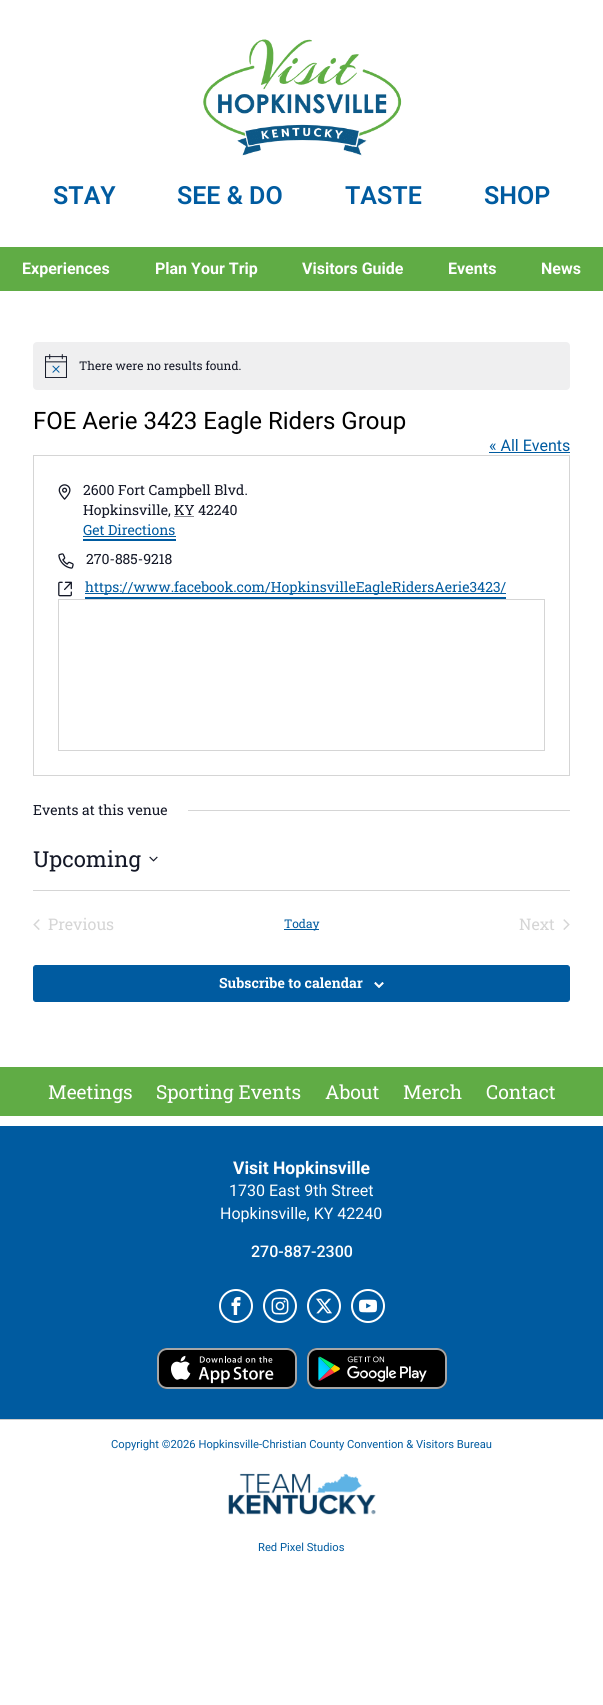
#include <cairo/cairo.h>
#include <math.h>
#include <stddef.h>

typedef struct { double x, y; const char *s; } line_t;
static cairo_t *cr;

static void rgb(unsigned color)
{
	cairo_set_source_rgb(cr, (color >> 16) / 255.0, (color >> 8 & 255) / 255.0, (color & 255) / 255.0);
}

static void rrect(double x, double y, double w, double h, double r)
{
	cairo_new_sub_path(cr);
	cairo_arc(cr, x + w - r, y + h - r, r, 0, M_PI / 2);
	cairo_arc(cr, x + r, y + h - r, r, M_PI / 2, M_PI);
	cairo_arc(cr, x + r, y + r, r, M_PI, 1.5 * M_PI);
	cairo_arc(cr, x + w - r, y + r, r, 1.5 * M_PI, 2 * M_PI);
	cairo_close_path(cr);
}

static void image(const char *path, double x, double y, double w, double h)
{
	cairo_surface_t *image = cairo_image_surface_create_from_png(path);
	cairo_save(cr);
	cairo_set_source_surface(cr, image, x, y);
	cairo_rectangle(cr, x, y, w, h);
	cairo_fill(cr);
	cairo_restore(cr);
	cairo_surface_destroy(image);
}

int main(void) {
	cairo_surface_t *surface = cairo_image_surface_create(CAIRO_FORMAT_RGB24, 603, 1705);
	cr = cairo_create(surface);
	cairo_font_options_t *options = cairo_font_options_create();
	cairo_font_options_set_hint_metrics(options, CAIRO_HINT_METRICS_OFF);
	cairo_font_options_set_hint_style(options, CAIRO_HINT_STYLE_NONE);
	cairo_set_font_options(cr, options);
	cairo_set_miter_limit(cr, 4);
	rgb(0xffffff);
	cairo_paint(cr);
	image("img/1.png", 203, 39, 199, 117);
	rgb(0x60ac45);
	cairo_rectangle(cr, 0, 247, 603, 44);
	cairo_fill(cr);
	rgb(0xefeff0);
	rrect(33, 342, 537, 48, 4);
	cairo_fill(cr);
	image("img/2.png", 45, 354, 22, 24);
	rgb(0x005ba0);
	cairo_rectangle(cr, 489, 452, 81, 1);
	cairo_fill(cr);
	cairo_rectangle(cr, 33.5, 455.5, 536, 320);
	rgb(0xd5d5d5);
	cairo_set_line_width(cr, 1);
	cairo_stroke(cr);
	image("img/3.png", 58, 484, 13, 16);
	cairo_new_path(cr);
	cairo_move_to(cr, 174.5, 516.5);
	cairo_line_to(cr, 194.5, 516.5);
	rgb(0x141827);
	cairo_set_dash(cr, (double[]){1, 1}, 2, 0);
	cairo_stroke(cr);
	rgb(0x005ba0);
	cairo_rectangle(cr, 83, 539, 93, 2);
	cairo_fill(cr);
	cairo_rectangle(cr, 83, 536, 93, 1);
	cairo_fill(cr);
	image("img/4.png", 58, 553, 16, 16);
	image("img/5.png", 58, 581, 14, 16);
	cairo_rectangle(cr, 85, 597, 421, 2);
	cairo_fill(cr);
	cairo_rectangle(cr, 85, 593, 421, 1);
	cairo_fill(cr);
	cairo_rectangle(cr, 58.5, 599.5, 486, 151);
	rgb(0xd5d5d5);
	cairo_set_dash(cr, NULL, 0, 0);
	cairo_stroke(cr);
	cairo_rectangle(cr, 188, 810, 382, 1);
	cairo_fill(cr);
	image("img/6.png", 149, 856, 9, 6);
	cairo_rectangle(cr, 33, 890, 537, 1);
	cairo_fill(cr);
	image("img/7.png", 33, 919, 7, 11);
	rgb(0x005ba0);
	cairo_rectangle(cr, 284, 929, 35, 1);
	cairo_fill(cr);
	image("img/8.png", 563, 919, 7, 11);
	rrect(33.5, 965.5, 536, 36, 2.5);
	cairo_fill_preserve(cr);
	cairo_stroke(cr);
	image("img/9.png", 374, 982, 10, 6);
	rgb(0x60ac45);
	cairo_rectangle(cr, 0, 1067, 603, 49);
	cairo_fill(cr);
	rgb(0x005ba0);
	cairo_rectangle(cr, 0, 1126, 603, 293);
	cairo_fill(cr);
	cairo_arc(cr, 236, 1306, 16, 0, 2 * M_PI);
	rgb(0xffffff);
	cairo_set_line_width(cr, 2);
	cairo_stroke(cr);
	image("img/10.png", 231, 1297, 10, 18);
	cairo_arc(cr, 280, 1306, 16, 0, 2 * M_PI);
	cairo_stroke(cr);
	image("img/11.png", 271, 1297, 18, 18);
	cairo_arc(cr, 324, 1306, 16, 0, 2 * M_PI);
	cairo_stroke(cr);
	image("img/12.png", 316, 1298, 16, 16);
	cairo_arc(cr, 368, 1306, 16, 0, 2 * M_PI);
	cairo_stroke(cr);
	image("img/13.png", 359, 1299, 18, 14);
	rgb(0x000000);
	rrect(157, 1348, 140, 41, 10);
	cairo_fill(cr);
	image("img/14.png", 171, 1355, 103, 29);
	rrect(158, 1349, 138, 39, 9);
	rgb(0xa6a6a6);
	cairo_stroke(cr);
	rgb(0x000000);
	rrect(307, 1348, 140, 41, 10);
	cairo_fill(cr);
	image("img/15.png", 318, 1356, 109, 26);
	rrect(308, 1349, 138, 39, 9);
	rgb(0xa6a6a6);
	cairo_stroke(cr);
	rgb(0xcccccc);
	cairo_rectangle(cr, 0, 1419, 603, 1);
	cairo_fill(cr);
	image("img/16.png", 228, 1473, 148, 42);
	cairo_select_font_face(cr, "Roboto SemiBold", CAIRO_FONT_SLANT_NORMAL, CAIRO_FONT_WEIGHT_NORMAL);
	cairo_set_font_size(cr, 25);
	rgb(0x005ba0);
	{
		static const line_t items[] = {
			{53, 204, "STAY"},
			{177, 204, "SEE & DO"},
			{345, 204, "TASTE"},
			{484, 204, "SHOP"},
		};
		for (size_t i = 0; i < sizeof items / sizeof *items; i++) {
			cairo_move_to(cr, items[i].x, items[i].y);
			cairo_show_text(cr, items[i].s);
		}
	}
	cairo_select_font_face(cr, "Roboto", CAIRO_FONT_SLANT_NORMAL, CAIRO_FONT_WEIGHT_BOLD);
	cairo_set_font_size(cr, 16);
	rgb(0xffffff);
	{
		static const line_t items[] = {
			{22, 274, "Experiences"},
			{155, 274, "Plan Your Trip"},
			{302, 274, "Visitors Guide"},
			{448, 274, "Events"},
			{541, 274, "News"},
		};
		for (size_t i = 0; i < sizeof items / sizeof *items; i++) {
			cairo_move_to(cr, items[i].x, items[i].y);
			cairo_show_text(cr, items[i].s);
		}
	}
	cairo_select_font_face(cr, "Roboto Slab", CAIRO_FONT_SLANT_NORMAL, CAIRO_FONT_WEIGHT_NORMAL);
	cairo_set_font_size(cr, 12);
	rgb(0x141827);
	cairo_move_to(cr, 79, 370);
	cairo_show_text(cr, "There were no results found.");
	cairo_select_font_face(cr, "Roboto", CAIRO_FONT_SLANT_NORMAL, CAIRO_FONT_WEIGHT_NORMAL);
	cairo_set_font_size(cr, 24);
	rgb(0x000000);
	cairo_move_to(cr, 33, 429);
	cairo_show_text(cr, "FOE Aerie 3423 Eagle Riders Group");
	cairo_set_font_size(cr, 16);
	rgb(0x005ba0);
	cairo_move_to(cr, 489, 451);
	cairo_show_text(cr, "« All Events");
	cairo_select_font_face(cr, "Roboto Slab", CAIRO_FONT_SLANT_NORMAL, CAIRO_FONT_WEIGHT_NORMAL);
	cairo_set_font_size(cr, 14);
	rgb(0x141827);
	cairo_move_to(cr, 83, 495);
	cairo_show_text(cr, "2600 Fort Campbell Blvd.");
	cairo_move_to(cr, 83, 515);
	cairo_show_text(cr, "Hopkinsville, KY 42240");
	rgb(0x005ba0);
	cairo_move_to(cr, 83, 535);
	cairo_show_text(cr, "Get Directions");
	rgb(0x141827);
	cairo_move_to(cr, 86, 564);
	cairo_show_text(cr, "270-885-9218");
	rgb(0x005ba0);
	cairo_move_to(cr, 85, 592);
	cairo_show_text(cr, "https://www.facebook.com/HopkinsvilleEagleRidersAerie3423/");
	rgb(0x141827);
	cairo_move_to(cr, 33, 815);
	cairo_show_text(cr, "Events at this venue");
	cairo_set_font_size(cr, 22);
	cairo_move_to(cr, 33, 867);
	cairo_show_text(cr, "Upcoming");
	cairo_set_font_size(cr, 16);
	rgb(0xd5d5d5);
	cairo_move_to(cr, 48, 930);
	cairo_show_text(cr, "Previous");
	cairo_set_font_size(cr, 12);
	rgb(0x005ba0);
	cairo_move_to(cr, 284, 928);
	cairo_show_text(cr, "Today");
	cairo_set_font_size(cr, 16);
	rgb(0xd5d5d5);
	cairo_move_to(cr, 519, 930);
	cairo_show_text(cr, "Next");
	cairo_select_font_face(cr, "Roboto Slab", CAIRO_FONT_SLANT_NORMAL, CAIRO_FONT_WEIGHT_BOLD);
	cairo_set_font_size(cr, 14);
	rgb(0xffffff);
	cairo_move_to(cr, 219, 988);
	cairo_show_text(cr, "Subscribe to calendar");
	cairo_select_font_face(cr, "Roboto Slab", CAIRO_FONT_SLANT_NORMAL, CAIRO_FONT_WEIGHT_NORMAL);
	cairo_set_font_size(cr, 19.25);
	{
		static const line_t items[] = {
			{48, 1099, "Meetings"},
			{156, 1099, "Sporting Events"},
			{325, 1099, "About"},
			{403, 1099, "Merch"},
			{486, 1099, "Contact"},
		};
		for (size_t i = 0; i < sizeof items / sizeof *items; i++) {
			cairo_move_to(cr, items[i].x, items[i].y);
			cairo_show_text(cr, items[i].s);
		}
	}
	cairo_select_font_face(cr, "Roboto", CAIRO_FONT_SLANT_NORMAL, CAIRO_FONT_WEIGHT_BOLD);
	cairo_set_font_size(cr, 17.5);
	cairo_move_to(cr, 233, 1174);
	cairo_show_text(cr, "Visit Hopkinsville");
	cairo_select_font_face(cr, "Roboto", CAIRO_FONT_SLANT_NORMAL, CAIRO_FONT_WEIGHT_NORMAL);
	cairo_set_font_size(cr, 16);
	cairo_move_to(cr, 229, 1196);
	cairo_show_text(cr, "1730 East 9th Street");
	cairo_move_to(cr, 220, 1219);
	cairo_show_text(cr, "Hopkinsville, KY 42240");
	cairo_select_font_face(cr, "Roboto Medium", CAIRO_FONT_SLANT_NORMAL, CAIRO_FONT_WEIGHT_NORMAL);
	cairo_move_to(cr, 251, 1257);
	cairo_show_text(cr, "270-887-2300");
	cairo_select_font_face(cr, "Roboto", CAIRO_FONT_SLANT_NORMAL, CAIRO_FONT_WEIGHT_NORMAL);
	cairo_set_font_size(cr, 11.2);
	rgb(0x005ba0);
	cairo_move_to(cr, 111, 1448);
	cairo_show_text(cr, "Copyright ©2026 Hopkinsville-Christian County Convention & Visitors Bureau");
	cairo_move_to(cr, 258, 1551);
	cairo_show_text(cr, "Red Pixel Studios");
	cairo_surface_write_to_png(surface, "page.png");
	cairo_font_options_destroy(options);
	cairo_destroy(cr);
	cairo_surface_destroy(surface);
	return 0;
}
